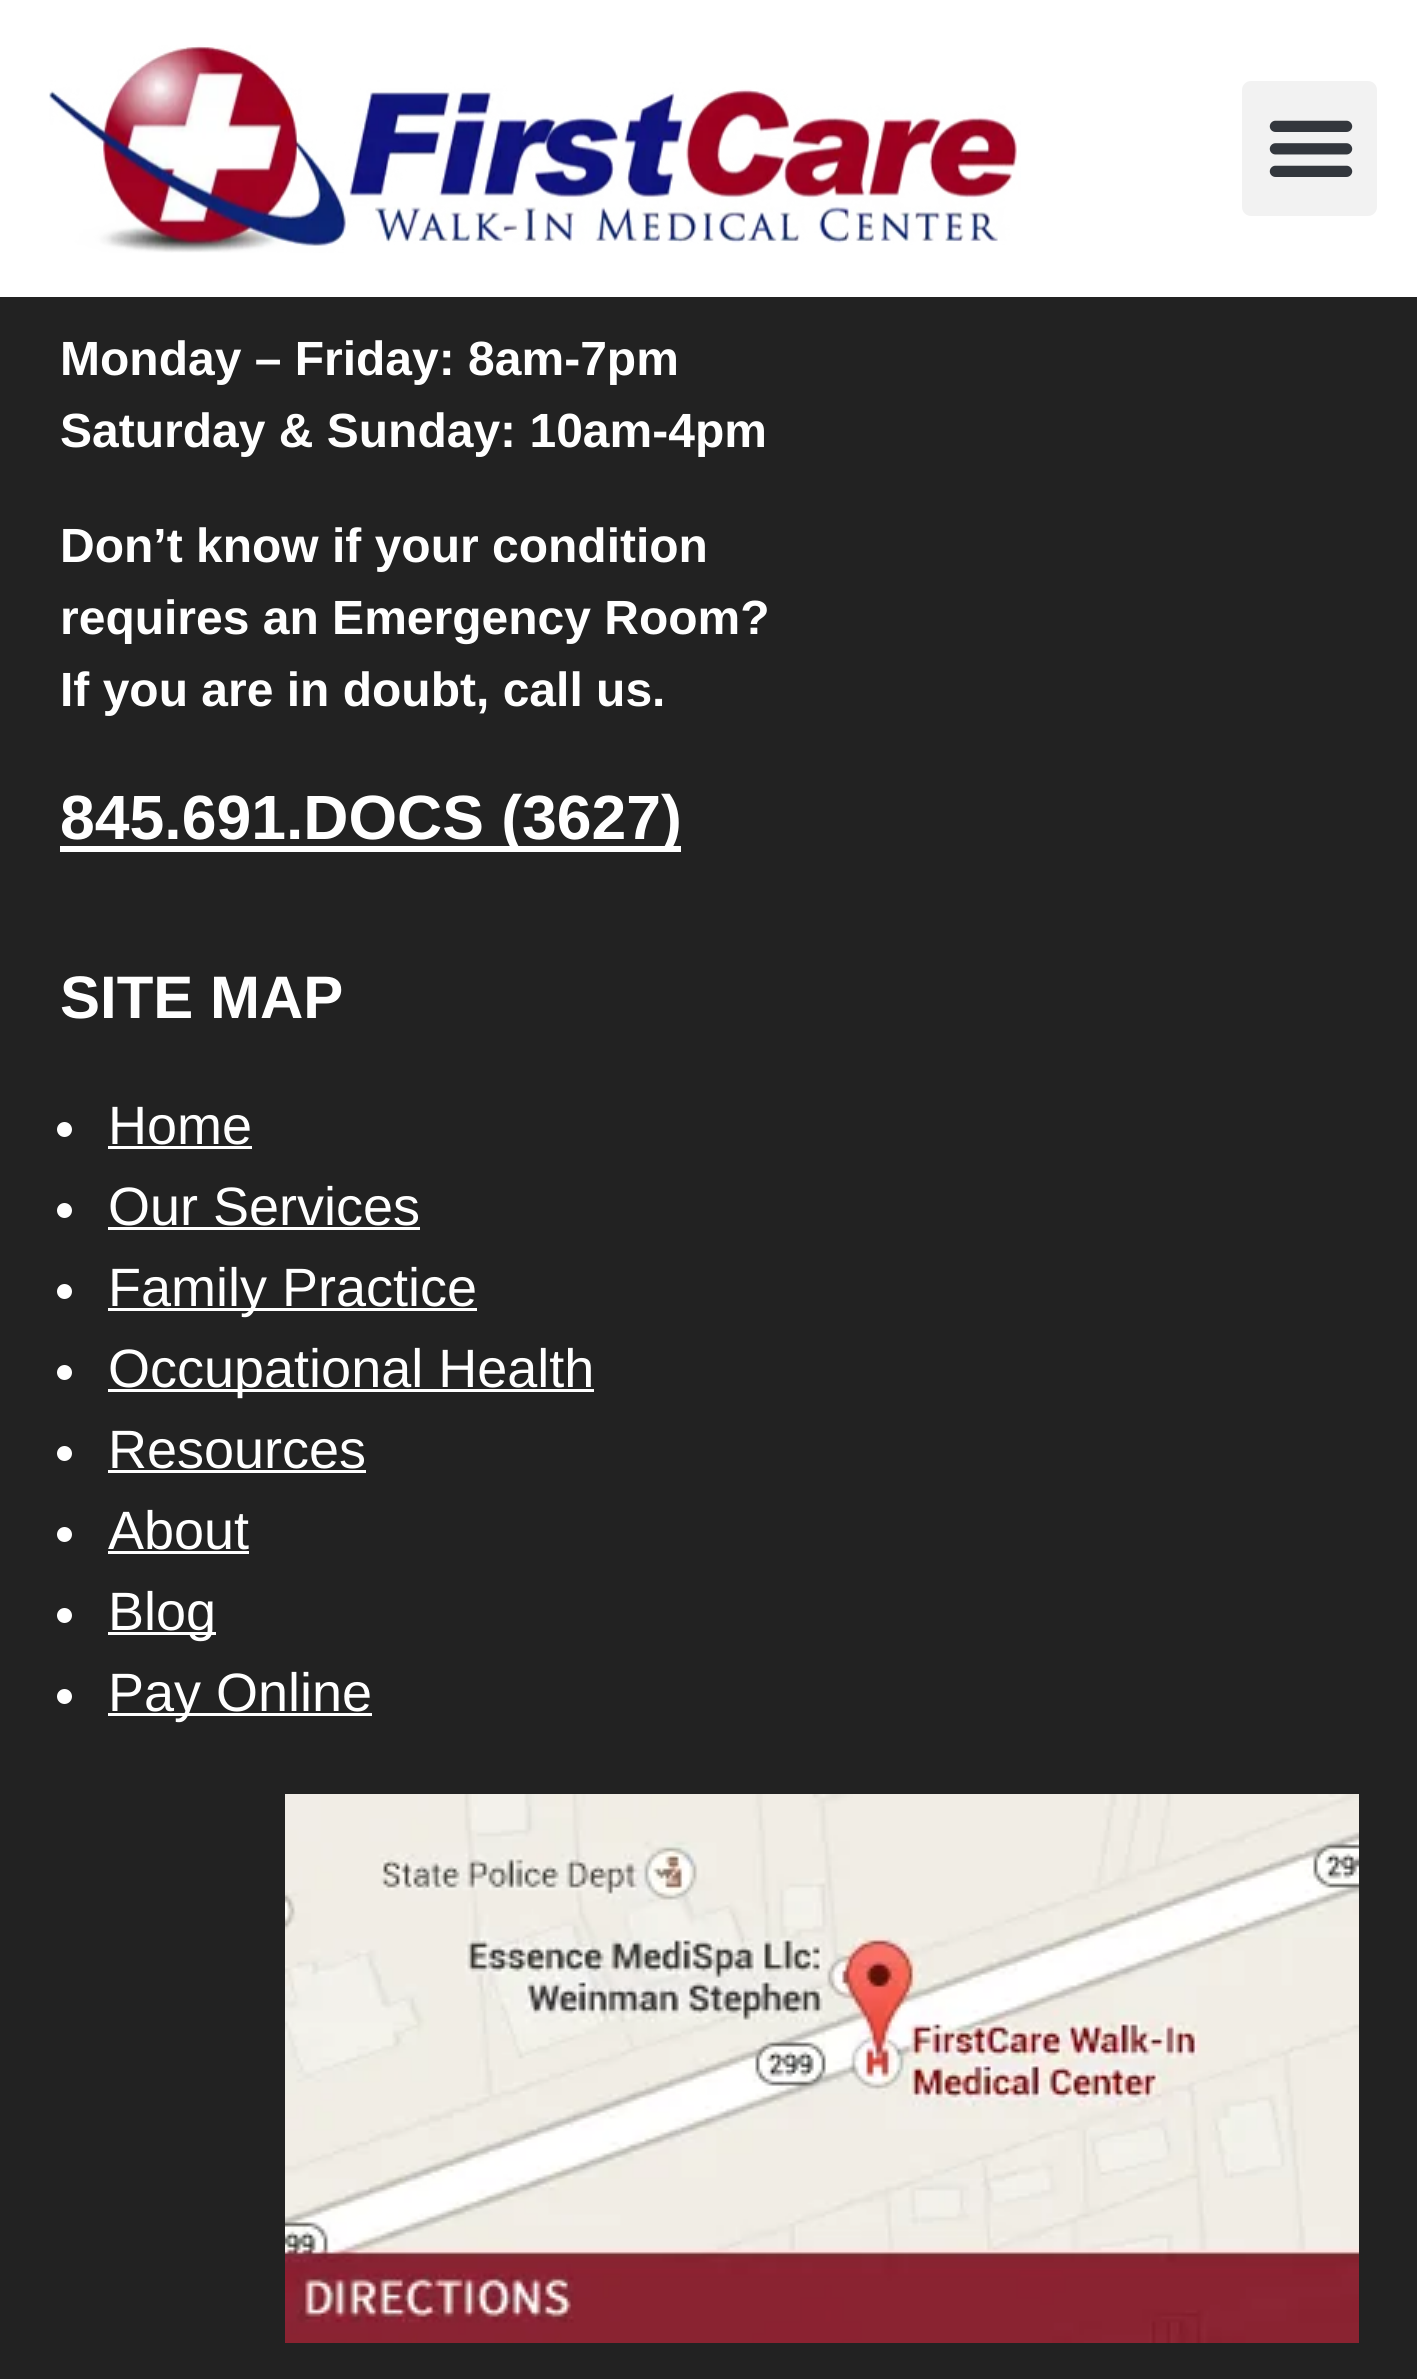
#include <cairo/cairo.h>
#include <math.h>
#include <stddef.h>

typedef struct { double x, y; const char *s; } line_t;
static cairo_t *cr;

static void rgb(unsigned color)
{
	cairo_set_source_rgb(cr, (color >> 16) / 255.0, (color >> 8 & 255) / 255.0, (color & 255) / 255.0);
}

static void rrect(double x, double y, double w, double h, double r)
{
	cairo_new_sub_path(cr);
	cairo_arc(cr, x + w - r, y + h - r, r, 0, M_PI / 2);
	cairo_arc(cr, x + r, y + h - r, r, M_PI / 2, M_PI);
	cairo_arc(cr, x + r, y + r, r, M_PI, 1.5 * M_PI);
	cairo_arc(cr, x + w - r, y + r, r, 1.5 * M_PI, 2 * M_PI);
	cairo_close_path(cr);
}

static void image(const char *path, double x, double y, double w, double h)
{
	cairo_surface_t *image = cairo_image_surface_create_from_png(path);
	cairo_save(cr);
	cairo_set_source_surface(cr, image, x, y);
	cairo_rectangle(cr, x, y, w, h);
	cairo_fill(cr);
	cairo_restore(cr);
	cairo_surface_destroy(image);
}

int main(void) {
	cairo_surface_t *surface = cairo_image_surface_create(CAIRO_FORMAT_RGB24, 1417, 2379);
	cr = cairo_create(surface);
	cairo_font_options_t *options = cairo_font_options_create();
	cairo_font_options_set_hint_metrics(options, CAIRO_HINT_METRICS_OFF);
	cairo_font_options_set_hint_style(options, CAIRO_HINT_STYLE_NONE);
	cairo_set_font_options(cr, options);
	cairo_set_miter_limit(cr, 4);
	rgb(0x222222);
	cairo_paint(cr);
	rgb(0xffffff);
	cairo_rectangle(cr, 0, 0, 1417, 297);
	cairo_fill(cr);
	image("img/1.png", 49, 45, 972, 208);
	rgb(0xf2f2f2);
	rrect(1242, 81, 135, 135, 9);
	cairo_fill(cr);
	image("img/2.png", 1269, 120, 84, 57);
	rgb(0xffffff);
	cairo_rectangle(cr, 60, 846, 621, 6);
	cairo_fill(cr);
	cairo_arc(cr, 64.5, 1129.5, 7.5, 0, 2 * M_PI);
	cairo_fill(cr);
	cairo_rectangle(cr, 108, 1146, 144, 3);
	cairo_fill(cr);
	cairo_arc(cr, 64.5, 1210.5, 7.5, 0, 2 * M_PI);
	cairo_fill(cr);
	cairo_rectangle(cr, 108, 1227, 312, 3);
	cairo_fill(cr);
	cairo_arc(cr, 64.5, 1291.5, 7.5, 0, 2 * M_PI);
	cairo_fill(cr);
	cairo_rectangle(cr, 108, 1308, 369, 3);
	cairo_fill(cr);
	cairo_arc(cr, 64.5, 1372.5, 7.5, 0, 2 * M_PI);
	cairo_fill(cr);
	cairo_rectangle(cr, 108, 1389, 486, 3);
	cairo_fill(cr);
	cairo_arc(cr, 64.5, 1453.5, 7.5, 0, 2 * M_PI);
	cairo_fill(cr);
	cairo_rectangle(cr, 108, 1470, 258, 3);
	cairo_fill(cr);
	cairo_arc(cr, 64.5, 1534.5, 7.5, 0, 2 * M_PI);
	cairo_fill(cr);
	cairo_rectangle(cr, 108, 1551, 141, 3);
	cairo_fill(cr);
	cairo_arc(cr, 64.5, 1615.5, 7.5, 0, 2 * M_PI);
	cairo_fill(cr);
	cairo_rectangle(cr, 108, 1632, 108, 3);
	cairo_fill(cr);
	cairo_arc(cr, 64.5, 1696.5, 7.5, 0, 2 * M_PI);
	cairo_fill(cr);
	cairo_rectangle(cr, 108, 1713, 264, 3);
	cairo_fill(cr);
	image("img/3.png", 285, 1794, 1074, 549);
	cairo_select_font_face(cr, "Liberation Sans", CAIRO_FONT_SLANT_NORMAL, CAIRO_FONT_WEIGHT_BOLD);
	cairo_set_font_size(cr, 48);
	{
		static const line_t items[] = {
			{60, 375, "Monday – Friday: 8am-7pm"},
			{60, 447, "Saturday & Sunday: 10am-4pm"},
			{60, 562, "Don’t know if your condition"},
			{60, 634, "requires an Emergency Room?"},
			{60, 706, "If you are in doubt, call us."},
		};
		for (size_t i = 0; i < sizeof items / sizeof *items; i++) {
			cairo_move_to(cr, items[i].x, items[i].y);
			cairo_show_text(cr, items[i].s);
		}
	}
	cairo_set_font_size(cr, 62.5);
	cairo_move_to(cr, 60, 839);
	cairo_show_text(cr, "845.691.DOCS (3627)");
	cairo_set_font_size(cr, 60);
	cairo_move_to(cr, 60, 1018);
	cairo_show_text(cr, "SITE MAP");
	cairo_select_font_face(cr, "Liberation Sans", CAIRO_FONT_SLANT_NORMAL, CAIRO_FONT_WEIGHT_NORMAL);
	cairo_set_font_size(cr, 54);
	{
		static const line_t items[] = {
			{108, 1144, "Home"},
			{108, 1225, "Our Services"},
			{108, 1306, "Family Practice"},
			{108, 1387, "Occupational Health"},
			{108, 1468, "Resources"},
			{108, 1549, "About"},
			{108, 1630, "Blog"},
			{108, 1711, "Pay Online"},
		};
		for (size_t i = 0; i < sizeof items / sizeof *items; i++) {
			cairo_move_to(cr, items[i].x, items[i].y);
			cairo_show_text(cr, items[i].s);
		}
	}
	cairo_surface_write_to_png(surface, "page.png");
	cairo_font_options_destroy(options);
	cairo_destroy(cr);
	cairo_surface_destroy(surface);
	return 0;
}
